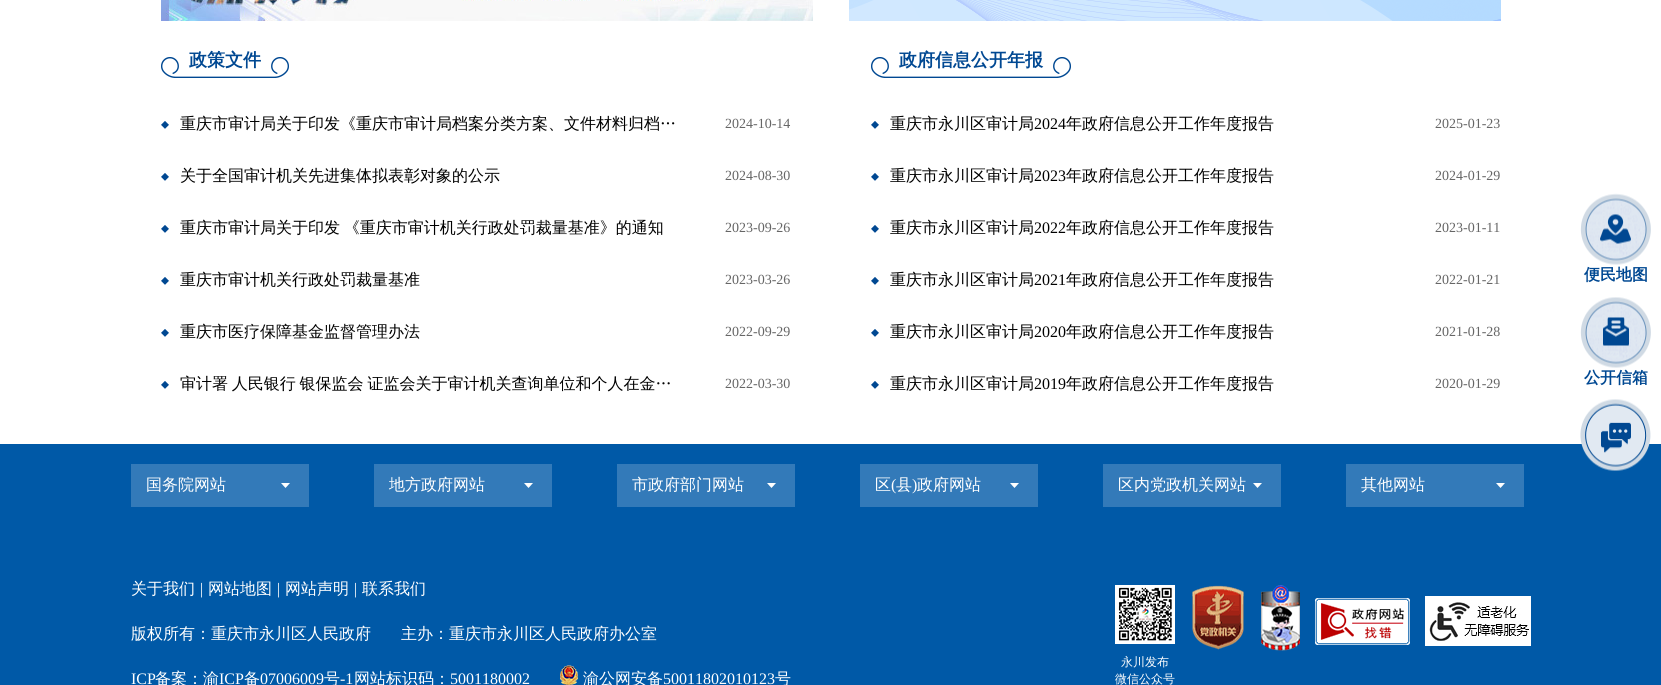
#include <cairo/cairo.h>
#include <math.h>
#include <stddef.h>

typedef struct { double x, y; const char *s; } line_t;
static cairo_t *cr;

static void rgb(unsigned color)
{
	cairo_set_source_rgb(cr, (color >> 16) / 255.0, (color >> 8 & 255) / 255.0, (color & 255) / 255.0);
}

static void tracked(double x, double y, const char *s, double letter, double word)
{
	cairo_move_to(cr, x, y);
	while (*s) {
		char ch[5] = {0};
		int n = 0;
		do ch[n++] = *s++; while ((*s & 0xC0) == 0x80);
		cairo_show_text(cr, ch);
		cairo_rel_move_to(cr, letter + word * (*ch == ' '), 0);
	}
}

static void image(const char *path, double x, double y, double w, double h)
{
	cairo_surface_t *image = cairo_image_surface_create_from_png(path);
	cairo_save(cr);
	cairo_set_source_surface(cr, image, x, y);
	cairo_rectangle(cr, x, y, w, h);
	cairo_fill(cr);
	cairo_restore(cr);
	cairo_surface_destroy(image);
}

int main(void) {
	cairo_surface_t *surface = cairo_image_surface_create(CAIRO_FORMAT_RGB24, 1661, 685);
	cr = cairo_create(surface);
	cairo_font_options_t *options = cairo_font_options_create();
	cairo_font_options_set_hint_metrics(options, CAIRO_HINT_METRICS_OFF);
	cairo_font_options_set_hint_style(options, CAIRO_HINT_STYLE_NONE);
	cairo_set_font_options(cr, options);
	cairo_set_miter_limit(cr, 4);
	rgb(0xffffff);
	cairo_paint(cr);
	image("img/1.png", 161, 0, 652, 21);
	image("img/2.png", 849, 0, 652, 21);
	image("img/3.png", 161, 57, 18, 21);
	image("img/4.png", 179, 76, 92, 2);
	image("img/5.png", 271, 57, 18, 21);
	image("img/6.png", 161, 121, 8, 8);
	image("img/6.png", 161, 173, 8, 8);
	image("img/6.png", 161, 225, 8, 8);
	image("img/6.png", 161, 277, 8, 8);
	image("img/6.png", 161, 329, 8, 8);
	image("img/6.png", 161, 381, 8, 8);
	image("img/3.png", 871, 57, 18, 21);
	image("img/7.png", 889, 76, 164, 2);
	image("img/5.png", 1053, 57, 18, 21);
	image("img/6.png", 871, 121, 8, 8);
	image("img/6.png", 871, 173, 8, 8);
	image("img/6.png", 871, 225, 8, 8);
	image("img/6.png", 871, 277, 8, 8);
	image("img/6.png", 871, 329, 8, 8);
	image("img/6.png", 871, 381, 8, 8);
	image("img/8.png", 1580, 193, 71, 72);
	image("img/9.png", 1580, 297, 71, 71);
	rgb(0x0059a7);
	cairo_rectangle(cr, 0, 444, 1661, 241);
	cairo_fill(cr);
	image("img/10.png", 1580, 399, 71, 72);
	rgb(0x337ab9);
	cairo_rectangle(cr, 131, 464, 178, 43);
	cairo_fill(cr);
	image("img/11.png", 281, 483, 9, 5);
	cairo_rectangle(cr, 374, 464, 178, 43);
	cairo_fill(cr);
	image("img/11.png", 524, 483, 9, 5);
	cairo_rectangle(cr, 617, 464, 178, 43);
	cairo_fill(cr);
	image("img/11.png", 767, 483, 9, 5);
	cairo_rectangle(cr, 860, 464, 178, 43);
	cairo_fill(cr);
	image("img/11.png", 1010, 483, 9, 5);
	cairo_rectangle(cr, 1103, 464, 178, 43);
	cairo_fill(cr);
	image("img/11.png", 1253, 483, 9, 5);
	cairo_rectangle(cr, 1346, 464, 178, 43);
	cairo_fill(cr);
	image("img/11.png", 1496, 483, 9, 5);
	image("img/12.png", 560, 665, 18, 20);
	image("img/13.png", 1192, 585, 52, 65);
	image("img/14.png", 1261, 585, 39, 66);
	image("img/15.png", 1315, 598, 95, 47);
	image("img/16.png", 1425, 596, 106, 50);
	image("img/17.png", 1115, 585, 60, 59);
	cairo_select_font_face(cr, "WenQuanYi Zen Hei", CAIRO_FONT_SLANT_NORMAL, CAIRO_FONT_WEIGHT_BOLD);
	cairo_set_font_size(cr, 18);
	rgb(0x004892);
	cairo_move_to(cr, 189, 66);
	cairo_show_text(cr, "政策文件");
	cairo_select_font_face(cr, "WenQuanYi Zen Hei Medium", CAIRO_FONT_SLANT_NORMAL, CAIRO_FONT_WEIGHT_NORMAL);
	cairo_set_font_size(cr, 16);
	rgb(0x000000);
	cairo_move_to(cr, 180, 129);
	cairo_show_text(cr, "重庆市审计局关于印发《重庆市审计局档案分类方案、文件材料归档…");
	cairo_select_font_face(cr, "Liberation Serif", CAIRO_FONT_SLANT_NORMAL, CAIRO_FONT_WEIGHT_NORMAL);
	cairo_set_font_size(cr, 14);
	rgb(0x666666);
	cairo_move_to(cr, 725, 128);
	cairo_show_text(cr, "2024-10-14");
	cairo_select_font_face(cr, "WenQuanYi Zen Hei Medium", CAIRO_FONT_SLANT_NORMAL, CAIRO_FONT_WEIGHT_NORMAL);
	cairo_set_font_size(cr, 16);
	rgb(0x000000);
	cairo_move_to(cr, 180, 181);
	cairo_show_text(cr, "关于全国审计机关先进集体拟表彰对象的公示");
	cairo_select_font_face(cr, "Liberation Serif", CAIRO_FONT_SLANT_NORMAL, CAIRO_FONT_WEIGHT_NORMAL);
	cairo_set_font_size(cr, 14);
	rgb(0x666666);
	cairo_move_to(cr, 725, 180);
	cairo_show_text(cr, "2024-08-30");
	cairo_select_font_face(cr, "WenQuanYi Zen Hei Medium", CAIRO_FONT_SLANT_NORMAL, CAIRO_FONT_WEIGHT_NORMAL);
	cairo_set_font_size(cr, 16);
	rgb(0x000000);
	tracked(180, 233, "重庆市审计局关于印发 《重庆市审计机关行政处罚裁量基准》的通知", 0, -1);
	cairo_select_font_face(cr, "Liberation Serif", CAIRO_FONT_SLANT_NORMAL, CAIRO_FONT_WEIGHT_NORMAL);
	cairo_set_font_size(cr, 14);
	rgb(0x666666);
	cairo_move_to(cr, 725, 232);
	cairo_show_text(cr, "2023-09-26");
	cairo_select_font_face(cr, "WenQuanYi Zen Hei Medium", CAIRO_FONT_SLANT_NORMAL, CAIRO_FONT_WEIGHT_NORMAL);
	cairo_set_font_size(cr, 16);
	rgb(0x000000);
	cairo_move_to(cr, 180, 285);
	cairo_show_text(cr, "重庆市审计机关行政处罚裁量基准");
	cairo_select_font_face(cr, "Liberation Serif", CAIRO_FONT_SLANT_NORMAL, CAIRO_FONT_WEIGHT_NORMAL);
	cairo_set_font_size(cr, 14);
	rgb(0x666666);
	cairo_move_to(cr, 725, 284);
	cairo_show_text(cr, "2023-03-26");
	cairo_select_font_face(cr, "WenQuanYi Zen Hei Medium", CAIRO_FONT_SLANT_NORMAL, CAIRO_FONT_WEIGHT_NORMAL);
	cairo_set_font_size(cr, 16);
	rgb(0x000000);
	cairo_move_to(cr, 180, 337);
	cairo_show_text(cr, "重庆市医疗保障基金监督管理办法");
	cairo_select_font_face(cr, "Liberation Serif", CAIRO_FONT_SLANT_NORMAL, CAIRO_FONT_WEIGHT_NORMAL);
	cairo_set_font_size(cr, 14);
	rgb(0x666666);
	cairo_move_to(cr, 725, 336);
	cairo_show_text(cr, "2022-09-29");
	cairo_select_font_face(cr, "WenQuanYi Zen Hei Medium", CAIRO_FONT_SLANT_NORMAL, CAIRO_FONT_WEIGHT_NORMAL);
	cairo_set_font_size(cr, 16);
	rgb(0x000000);
	tracked(180, 389, "审计署 人民银行 银保监会 证监会关于审计机关查询单位和个人在金…", 0, -1);
	cairo_select_font_face(cr, "Liberation Serif", CAIRO_FONT_SLANT_NORMAL, CAIRO_FONT_WEIGHT_NORMAL);
	cairo_set_font_size(cr, 14);
	rgb(0x666666);
	cairo_move_to(cr, 725, 388);
	cairo_show_text(cr, "2022-03-30");
	cairo_select_font_face(cr, "WenQuanYi Zen Hei", CAIRO_FONT_SLANT_NORMAL, CAIRO_FONT_WEIGHT_BOLD);
	cairo_set_font_size(cr, 18);
	rgb(0x004892);
	cairo_move_to(cr, 899, 66);
	cairo_show_text(cr, "政府信息公开年报");
	cairo_select_font_face(cr, "WenQuanYi Zen Hei Medium", CAIRO_FONT_SLANT_NORMAL, CAIRO_FONT_WEIGHT_NORMAL);
	cairo_set_font_size(cr, 16);
	rgb(0x000000);
	cairo_move_to(cr, 890, 129);
	cairo_show_text(cr, "重庆市永川区审计局");
	cairo_select_font_face(cr, "Liberation Serif", CAIRO_FONT_SLANT_NORMAL, CAIRO_FONT_WEIGHT_NORMAL);
	cairo_move_to(cr, 1034, 129);
	cairo_show_text(cr, "2024");
	cairo_select_font_face(cr, "WenQuanYi Zen Hei Medium", CAIRO_FONT_SLANT_NORMAL, CAIRO_FONT_WEIGHT_NORMAL);
	cairo_move_to(cr, 1066, 129);
	cairo_show_text(cr, "年政府信息公开工作年度报告");
	cairo_select_font_face(cr, "Liberation Serif", CAIRO_FONT_SLANT_NORMAL, CAIRO_FONT_WEIGHT_NORMAL);
	cairo_set_font_size(cr, 14);
	rgb(0x666666);
	cairo_move_to(cr, 1435, 128);
	cairo_show_text(cr, "2025-01-23");
	cairo_select_font_face(cr, "WenQuanYi Zen Hei Medium", CAIRO_FONT_SLANT_NORMAL, CAIRO_FONT_WEIGHT_NORMAL);
	cairo_set_font_size(cr, 16);
	rgb(0x000000);
	cairo_move_to(cr, 890, 181);
	cairo_show_text(cr, "重庆市永川区审计局");
	cairo_select_font_face(cr, "Liberation Serif", CAIRO_FONT_SLANT_NORMAL, CAIRO_FONT_WEIGHT_NORMAL);
	cairo_move_to(cr, 1034, 181);
	cairo_show_text(cr, "2023");
	cairo_select_font_face(cr, "WenQuanYi Zen Hei Medium", CAIRO_FONT_SLANT_NORMAL, CAIRO_FONT_WEIGHT_NORMAL);
	cairo_move_to(cr, 1066, 181);
	cairo_show_text(cr, "年政府信息公开工作年度报告");
	cairo_select_font_face(cr, "Liberation Serif", CAIRO_FONT_SLANT_NORMAL, CAIRO_FONT_WEIGHT_NORMAL);
	cairo_set_font_size(cr, 14);
	rgb(0x666666);
	cairo_move_to(cr, 1435, 180);
	cairo_show_text(cr, "2024-01-29");
	cairo_select_font_face(cr, "WenQuanYi Zen Hei Medium", CAIRO_FONT_SLANT_NORMAL, CAIRO_FONT_WEIGHT_NORMAL);
	cairo_set_font_size(cr, 16);
	rgb(0x000000);
	cairo_move_to(cr, 890, 233);
	cairo_show_text(cr, "重庆市永川区审计局");
	cairo_select_font_face(cr, "Liberation Serif", CAIRO_FONT_SLANT_NORMAL, CAIRO_FONT_WEIGHT_NORMAL);
	cairo_move_to(cr, 1034, 233);
	cairo_show_text(cr, "2022");
	cairo_select_font_face(cr, "WenQuanYi Zen Hei Medium", CAIRO_FONT_SLANT_NORMAL, CAIRO_FONT_WEIGHT_NORMAL);
	cairo_move_to(cr, 1066, 233);
	cairo_show_text(cr, "年政府信息公开工作年度报告");
	cairo_select_font_face(cr, "Liberation Serif", CAIRO_FONT_SLANT_NORMAL, CAIRO_FONT_WEIGHT_NORMAL);
	cairo_set_font_size(cr, 14);
	rgb(0x666666);
	cairo_move_to(cr, 1435, 232);
	cairo_show_text(cr, "2023-01-11");
	cairo_select_font_face(cr, "WenQuanYi Zen Hei Medium", CAIRO_FONT_SLANT_NORMAL, CAIRO_FONT_WEIGHT_NORMAL);
	cairo_set_font_size(cr, 16);
	rgb(0x000000);
	cairo_move_to(cr, 890, 285);
	cairo_show_text(cr, "重庆市永川区审计局");
	cairo_select_font_face(cr, "Liberation Serif", CAIRO_FONT_SLANT_NORMAL, CAIRO_FONT_WEIGHT_NORMAL);
	cairo_move_to(cr, 1034, 285);
	cairo_show_text(cr, "2021");
	cairo_select_font_face(cr, "WenQuanYi Zen Hei Medium", CAIRO_FONT_SLANT_NORMAL, CAIRO_FONT_WEIGHT_NORMAL);
	cairo_move_to(cr, 1066, 285);
	cairo_show_text(cr, "年政府信息公开工作年度报告");
	cairo_select_font_face(cr, "Liberation Serif", CAIRO_FONT_SLANT_NORMAL, CAIRO_FONT_WEIGHT_NORMAL);
	cairo_set_font_size(cr, 14);
	rgb(0x666666);
	cairo_move_to(cr, 1435, 284);
	cairo_show_text(cr, "2022-01-21");
	cairo_select_font_face(cr, "WenQuanYi Zen Hei Medium", CAIRO_FONT_SLANT_NORMAL, CAIRO_FONT_WEIGHT_NORMAL);
	cairo_set_font_size(cr, 16);
	rgb(0x000000);
	cairo_move_to(cr, 890, 337);
	cairo_show_text(cr, "重庆市永川区审计局");
	cairo_select_font_face(cr, "Liberation Serif", CAIRO_FONT_SLANT_NORMAL, CAIRO_FONT_WEIGHT_NORMAL);
	cairo_move_to(cr, 1034, 337);
	cairo_show_text(cr, "2020");
	cairo_select_font_face(cr, "WenQuanYi Zen Hei Medium", CAIRO_FONT_SLANT_NORMAL, CAIRO_FONT_WEIGHT_NORMAL);
	cairo_move_to(cr, 1066, 337);
	cairo_show_text(cr, "年政府信息公开工作年度报告");
	cairo_select_font_face(cr, "Liberation Serif", CAIRO_FONT_SLANT_NORMAL, CAIRO_FONT_WEIGHT_NORMAL);
	cairo_set_font_size(cr, 14);
	rgb(0x666666);
	cairo_move_to(cr, 1435, 336);
	cairo_show_text(cr, "2021-01-28");
	cairo_select_font_face(cr, "WenQuanYi Zen Hei Medium", CAIRO_FONT_SLANT_NORMAL, CAIRO_FONT_WEIGHT_NORMAL);
	cairo_set_font_size(cr, 16);
	rgb(0x000000);
	cairo_move_to(cr, 890, 389);
	cairo_show_text(cr, "重庆市永川区审计局");
	cairo_select_font_face(cr, "Liberation Serif", CAIRO_FONT_SLANT_NORMAL, CAIRO_FONT_WEIGHT_NORMAL);
	cairo_move_to(cr, 1034, 389);
	cairo_show_text(cr, "2019");
	cairo_select_font_face(cr, "WenQuanYi Zen Hei Medium", CAIRO_FONT_SLANT_NORMAL, CAIRO_FONT_WEIGHT_NORMAL);
	cairo_move_to(cr, 1066, 389);
	cairo_show_text(cr, "年政府信息公开工作年度报告");
	cairo_select_font_face(cr, "Liberation Serif", CAIRO_FONT_SLANT_NORMAL, CAIRO_FONT_WEIGHT_NORMAL);
	cairo_set_font_size(cr, 14);
	rgb(0x666666);
	cairo_move_to(cr, 1435, 388);
	cairo_show_text(cr, "2020-01-29");
	cairo_select_font_face(cr, "WenQuanYi Zen Hei", CAIRO_FONT_SLANT_NORMAL, CAIRO_FONT_WEIGHT_BOLD);
	cairo_set_font_size(cr, 16);
	rgb(0x004892);
	cairo_move_to(cr, 1584, 280);
	cairo_show_text(cr, "便民地图");
	cairo_move_to(cr, 1584, 383);
	cairo_show_text(cr, "公开信箱");
	cairo_select_font_face(cr, "WenQuanYi Zen Hei Medium", CAIRO_FONT_SLANT_NORMAL, CAIRO_FONT_WEIGHT_NORMAL);
	rgb(0xffffff);
	{
		static const line_t items[] = {
			{146, 490, "国务院网站"},
			{389, 490, "地方政府网站"},
			{632, 490, "市政府部门网站"},
			{875, 490, "区"},
		};
		for (size_t i = 0; i < sizeof items / sizeof *items; i++) {
			cairo_move_to(cr, items[i].x, items[i].y);
			cairo_show_text(cr, items[i].s);
		}
	}
	cairo_select_font_face(cr, "Liberation Serif", CAIRO_FONT_SLANT_NORMAL, CAIRO_FONT_WEIGHT_NORMAL);
	cairo_move_to(cr, 891, 490);
	cairo_show_text(cr, "(");
	cairo_select_font_face(cr, "WenQuanYi Zen Hei Medium", CAIRO_FONT_SLANT_NORMAL, CAIRO_FONT_WEIGHT_NORMAL);
	cairo_move_to(cr, 896, 490);
	cairo_show_text(cr, "县");
	cairo_select_font_face(cr, "Liberation Serif", CAIRO_FONT_SLANT_NORMAL, CAIRO_FONT_WEIGHT_NORMAL);
	cairo_move_to(cr, 912, 490);
	cairo_show_text(cr, ")");
	cairo_select_font_face(cr, "WenQuanYi Zen Hei Medium", CAIRO_FONT_SLANT_NORMAL, CAIRO_FONT_WEIGHT_NORMAL);
	{
		static const line_t items[] = {
			{917, 490, "政府网站"},
			{1118, 490, "区内党政机关网站"},
			{1361, 490, "其他网站"},
			{131, 594, "关于我们"},
		};
		for (size_t i = 0; i < sizeof items / sizeof *items; i++) {
			cairo_move_to(cr, items[i].x, items[i].y);
			cairo_show_text(cr, items[i].s);
		}
	}
	cairo_select_font_face(cr, "Liberation Serif", CAIRO_FONT_SLANT_NORMAL, CAIRO_FONT_WEIGHT_NORMAL);
	cairo_move_to(cr, 200, 594);
	cairo_show_text(cr, "|");
	cairo_select_font_face(cr, "WenQuanYi Zen Hei Medium", CAIRO_FONT_SLANT_NORMAL, CAIRO_FONT_WEIGHT_NORMAL);
	cairo_move_to(cr, 208, 594);
	cairo_show_text(cr, "网站地图");
	cairo_select_font_face(cr, "Liberation Serif", CAIRO_FONT_SLANT_NORMAL, CAIRO_FONT_WEIGHT_NORMAL);
	cairo_move_to(cr, 277, 594);
	cairo_show_text(cr, "|");
	cairo_select_font_face(cr, "WenQuanYi Zen Hei Medium", CAIRO_FONT_SLANT_NORMAL, CAIRO_FONT_WEIGHT_NORMAL);
	cairo_move_to(cr, 285, 594);
	cairo_show_text(cr, "网站声明");
	cairo_select_font_face(cr, "Liberation Serif", CAIRO_FONT_SLANT_NORMAL, CAIRO_FONT_WEIGHT_NORMAL);
	cairo_move_to(cr, 354, 594);
	cairo_show_text(cr, "|");
	cairo_select_font_face(cr, "WenQuanYi Zen Hei Medium", CAIRO_FONT_SLANT_NORMAL, CAIRO_FONT_WEIGHT_NORMAL);
	{
		static const line_t items[] = {
			{362, 594, "联系我们"},
			{131, 639, "版权所有：重庆市永川区人民政府"},
			{401, 639, "主办：重庆市永川区人民政府办公室"},
		};
		for (size_t i = 0; i < sizeof items / sizeof *items; i++) {
			cairo_move_to(cr, items[i].x, items[i].y);
			cairo_show_text(cr, items[i].s);
		}
	}
	cairo_select_font_face(cr, "Liberation Serif", CAIRO_FONT_SLANT_NORMAL, CAIRO_FONT_WEIGHT_NORMAL);
	cairo_move_to(cr, 131, 684);
	cairo_show_text(cr, "ICP");
	cairo_select_font_face(cr, "WenQuanYi Zen Hei Medium", CAIRO_FONT_SLANT_NORMAL, CAIRO_FONT_WEIGHT_NORMAL);
	cairo_move_to(cr, 155, 684);
	cairo_show_text(cr, "备案：渝");
	cairo_select_font_face(cr, "Liberation Serif", CAIRO_FONT_SLANT_NORMAL, CAIRO_FONT_WEIGHT_NORMAL);
	cairo_move_to(cr, 219, 684);
	cairo_show_text(cr, "ICP");
	cairo_select_font_face(cr, "WenQuanYi Zen Hei Medium", CAIRO_FONT_SLANT_NORMAL, CAIRO_FONT_WEIGHT_NORMAL);
	cairo_move_to(cr, 244, 684);
	cairo_show_text(cr, "备");
	cairo_select_font_face(cr, "Liberation Serif", CAIRO_FONT_SLANT_NORMAL, CAIRO_FONT_WEIGHT_NORMAL);
	cairo_move_to(cr, 260, 684);
	cairo_show_text(cr, "07006009");
	cairo_select_font_face(cr, "WenQuanYi Zen Hei Medium", CAIRO_FONT_SLANT_NORMAL, CAIRO_FONT_WEIGHT_NORMAL);
	cairo_move_to(cr, 324, 684);
	cairo_show_text(cr, "号");
	cairo_select_font_face(cr, "Liberation Serif", CAIRO_FONT_SLANT_NORMAL, CAIRO_FONT_WEIGHT_NORMAL);
	cairo_move_to(cr, 340, 684);
	cairo_show_text(cr, "-1");
	cairo_select_font_face(cr, "WenQuanYi Zen Hei Medium", CAIRO_FONT_SLANT_NORMAL, CAIRO_FONT_WEIGHT_NORMAL);
	cairo_move_to(cr, 354, 684);
	cairo_show_text(cr, "网站标识码：");
	cairo_select_font_face(cr, "Liberation Serif", CAIRO_FONT_SLANT_NORMAL, CAIRO_FONT_WEIGHT_NORMAL);
	cairo_move_to(cr, 450, 684);
	cairo_show_text(cr, "5001180002");
	cairo_select_font_face(cr, "WenQuanYi Zen Hei Medium", CAIRO_FONT_SLANT_NORMAL, CAIRO_FONT_WEIGHT_NORMAL);
	cairo_move_to(cr, 583, 684);
	cairo_show_text(cr, "渝公网安备");
	cairo_select_font_face(cr, "Liberation Serif", CAIRO_FONT_SLANT_NORMAL, CAIRO_FONT_WEIGHT_NORMAL);
	cairo_move_to(cr, 663, 684);
	cairo_show_text(cr, "50011802010123");
	cairo_select_font_face(cr, "WenQuanYi Zen Hei Medium", CAIRO_FONT_SLANT_NORMAL, CAIRO_FONT_WEIGHT_NORMAL);
	cairo_move_to(cr, 775, 684);
	cairo_show_text(cr, "号");
	cairo_set_font_size(cr, 12);
	cairo_move_to(cr, 1121, 666);
	cairo_show_text(cr, "永川发布");
	cairo_move_to(cr, 1115, 683);
	cairo_show_text(cr, "微信公众号");
	cairo_surface_write_to_png(surface, "page.png");
	cairo_font_options_destroy(options);
	cairo_destroy(cr);
	cairo_surface_destroy(surface);
	return 0;
}
